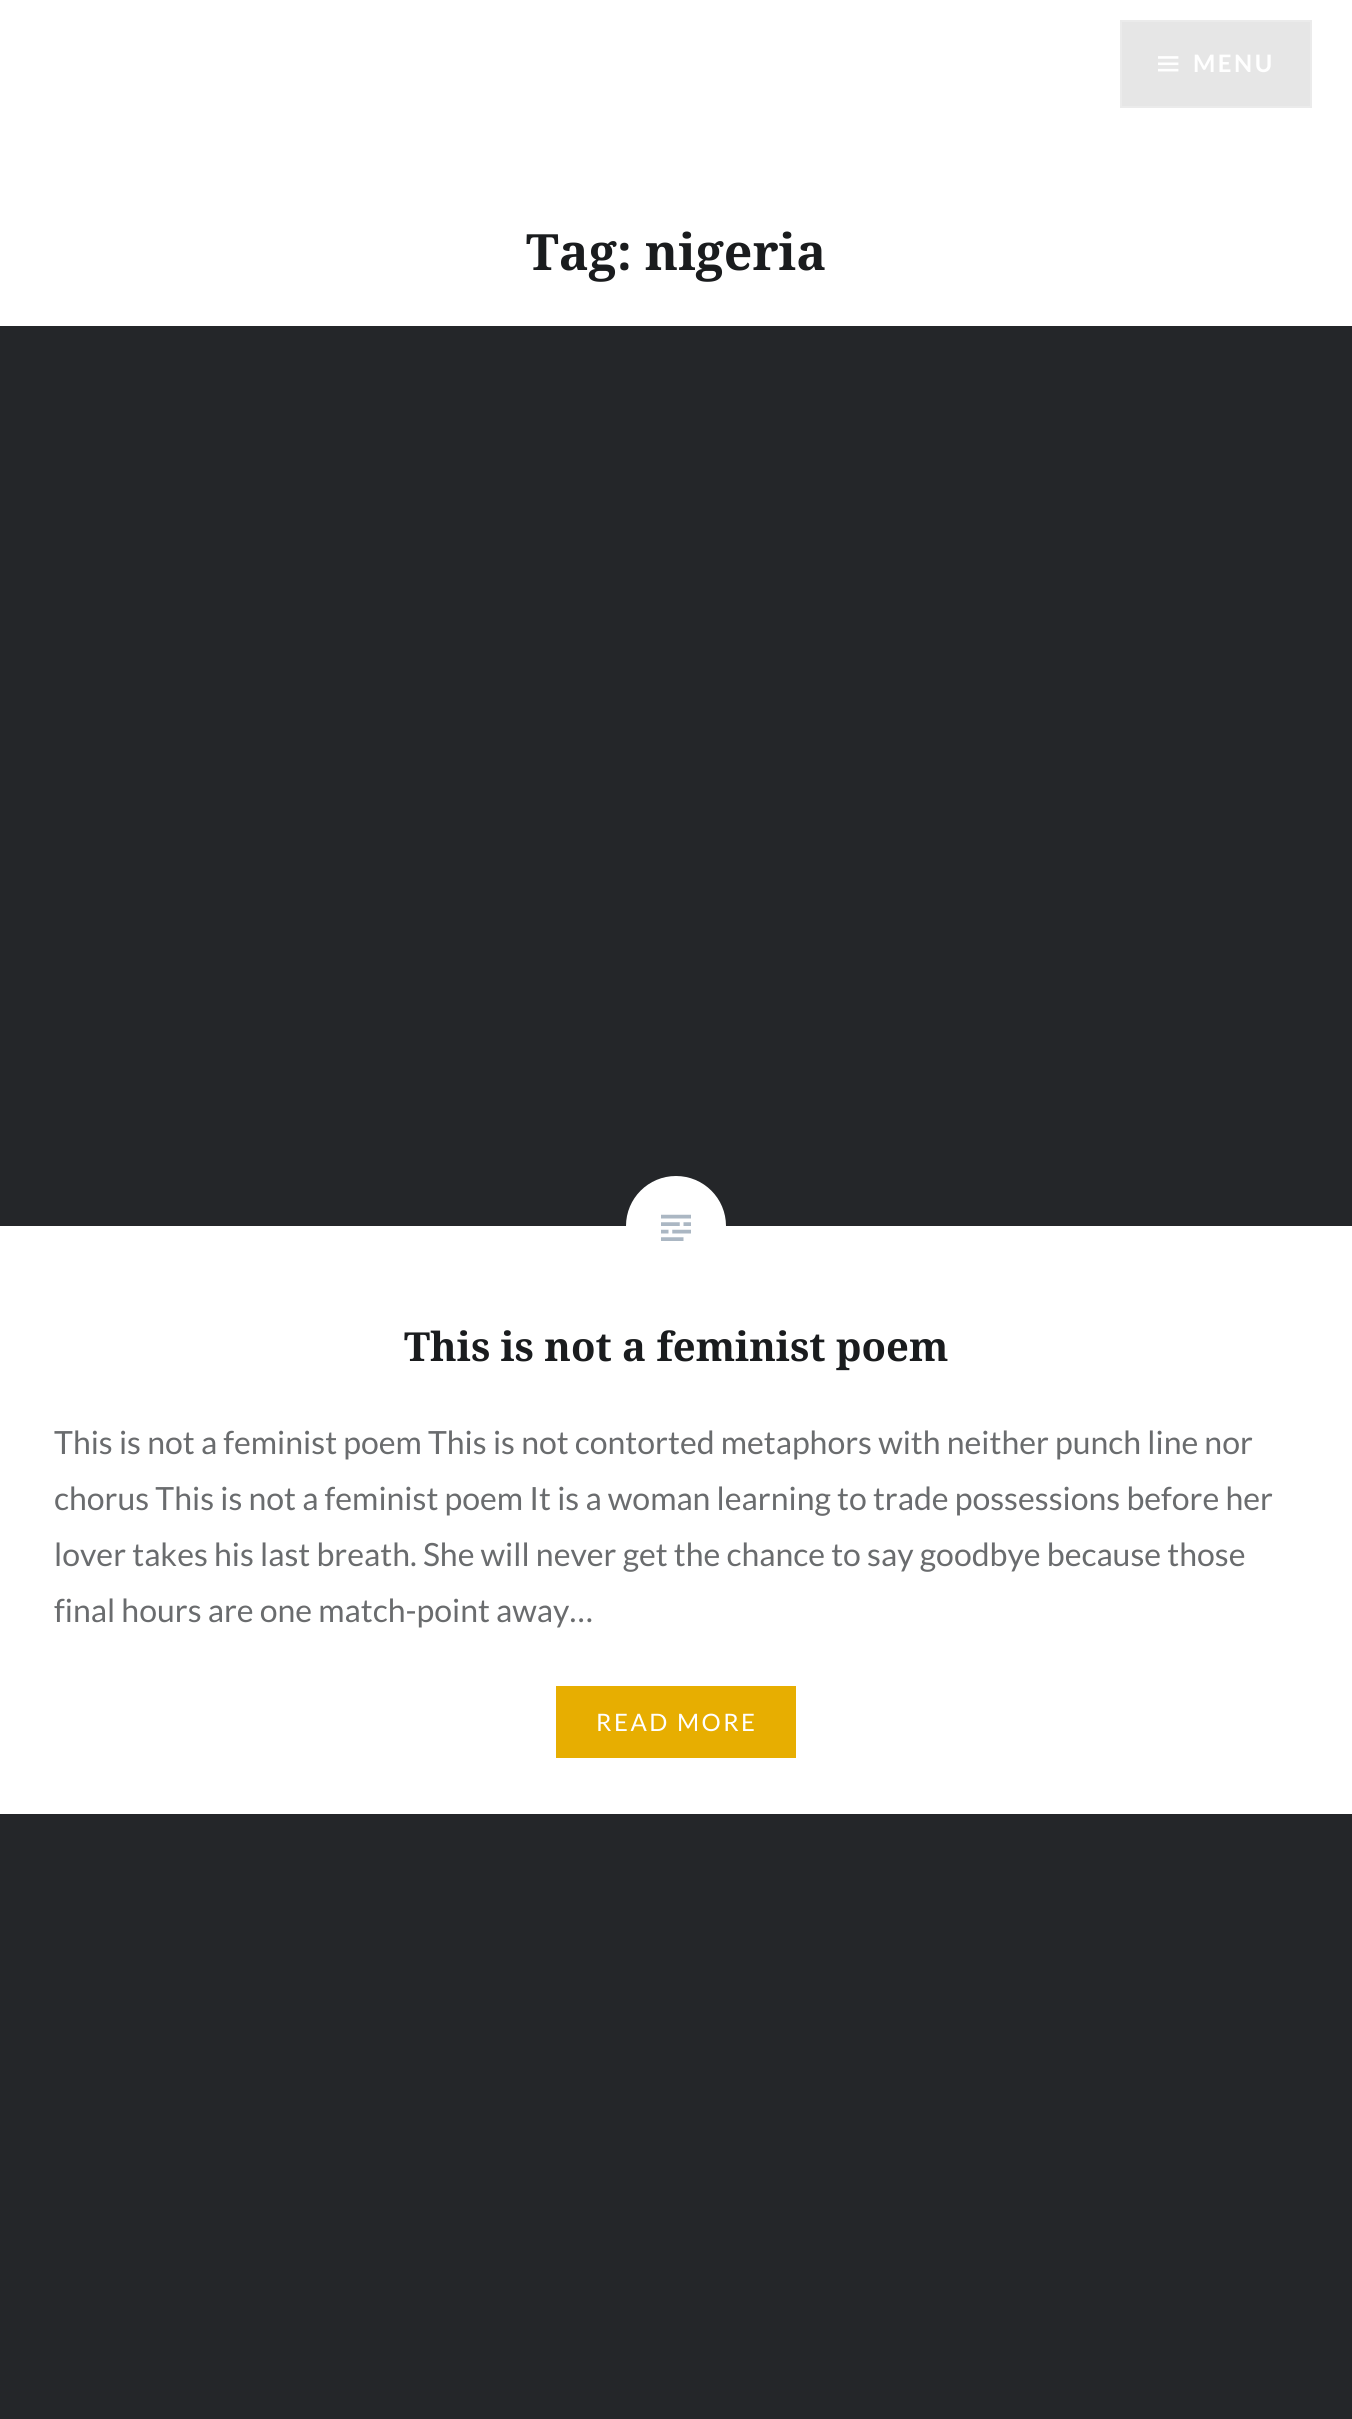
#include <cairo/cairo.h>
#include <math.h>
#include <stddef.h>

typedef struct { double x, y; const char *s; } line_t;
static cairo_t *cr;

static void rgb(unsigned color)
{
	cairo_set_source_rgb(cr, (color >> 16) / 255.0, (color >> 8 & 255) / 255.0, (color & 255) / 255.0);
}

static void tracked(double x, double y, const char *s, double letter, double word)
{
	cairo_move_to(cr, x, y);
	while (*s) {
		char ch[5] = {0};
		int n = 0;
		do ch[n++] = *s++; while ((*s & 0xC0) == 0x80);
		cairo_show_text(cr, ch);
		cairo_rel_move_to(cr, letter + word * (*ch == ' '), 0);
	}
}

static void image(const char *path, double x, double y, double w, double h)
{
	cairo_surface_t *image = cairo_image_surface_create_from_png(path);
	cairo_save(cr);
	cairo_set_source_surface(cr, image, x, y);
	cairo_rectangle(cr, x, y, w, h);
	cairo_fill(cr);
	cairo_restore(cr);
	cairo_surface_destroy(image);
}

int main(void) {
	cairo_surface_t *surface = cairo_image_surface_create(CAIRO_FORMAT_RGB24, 1352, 2419);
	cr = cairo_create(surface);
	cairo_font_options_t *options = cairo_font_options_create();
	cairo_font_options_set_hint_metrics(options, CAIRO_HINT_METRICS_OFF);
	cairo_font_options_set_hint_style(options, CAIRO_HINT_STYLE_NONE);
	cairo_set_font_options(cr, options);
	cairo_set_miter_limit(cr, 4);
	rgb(0xffffff);
	cairo_paint(cr);
	rgb(0xe6e6e6);
	cairo_rectangle(cr, 1121, 21, 190, 86);
	cairo_fill_preserve(cr);
	rgb(0xebebeb);
	cairo_stroke(cr);
	image("img/1.png", 1158, 56, 21, 16);
	rgb(0x242629);
	cairo_rectangle(cr, 0, 326, 1352, 900);
	cairo_fill(cr);
	rgb(0xffffff);
	cairo_arc(cr, 676, 1226, 50, 0, 2 * M_PI);
	cairo_fill(cr);
	image("img/2.png", 661, 1214, 30, 27);
	rgb(0xe7ae01);
	cairo_rectangle(cr, 556, 1686, 240, 72);
	cairo_fill(cr);
	rgb(0x242629);
	cairo_rectangle(cr, 0, 1814, 1352, 605);
	cairo_fill(cr);
	cairo_select_font_face(cr, "Lato", CAIRO_FONT_SLANT_NORMAL, CAIRO_FONT_WEIGHT_BOLD);
	cairo_set_font_size(cr, 24);
	rgb(0xffffff);
	tracked(1193, 72, "MENU", 2.5, 0);
	cairo_select_font_face(cr, "Noto Serif", CAIRO_FONT_SLANT_NORMAL, CAIRO_FONT_WEIGHT_BOLD);
	cairo_set_font_size(cr, 50);
	rgb(0x1a1c1e);
	cairo_move_to(cr, 526, 270);
	cairo_show_text(cr, "Tag: nigeria");
	cairo_set_font_size(cr, 40);
	cairo_move_to(cr, 404, 1361);
	cairo_show_text(cr, "This is not a feminist poem");
	cairo_select_font_face(cr, "Lato", CAIRO_FONT_SLANT_NORMAL, CAIRO_FONT_WEIGHT_NORMAL);
	cairo_set_font_size(cr, 32);
	rgb(0x6a6c6e);
	{
		static const line_t items[] = {
			{54, 1454, "This is not a feminist poem This is not contorted metaphors with neither punch line nor"},
			{54, 1510, "chorus This is not a feminist poem It is a woman learning to trade possessions before her"},
			{54, 1566, "lover takes his last breath. She will never get the chance to say goodbye because those"},
			{54, 1622, "final hours are one match-point away…"},
		};
		for (size_t i = 0; i < sizeof items / sizeof *items; i++) {
			cairo_move_to(cr, items[i].x, items[i].y);
			cairo_show_text(cr, items[i].s);
		}
	}
	cairo_set_font_size(cr, 24);
	rgb(0xffffff);
	tracked(596, 1731, "READ MORE", 2.5, 0);
	cairo_surface_write_to_png(surface, "page.png");
	cairo_font_options_destroy(options);
	cairo_destroy(cr);
	cairo_surface_destroy(surface);
	return 0;
}
